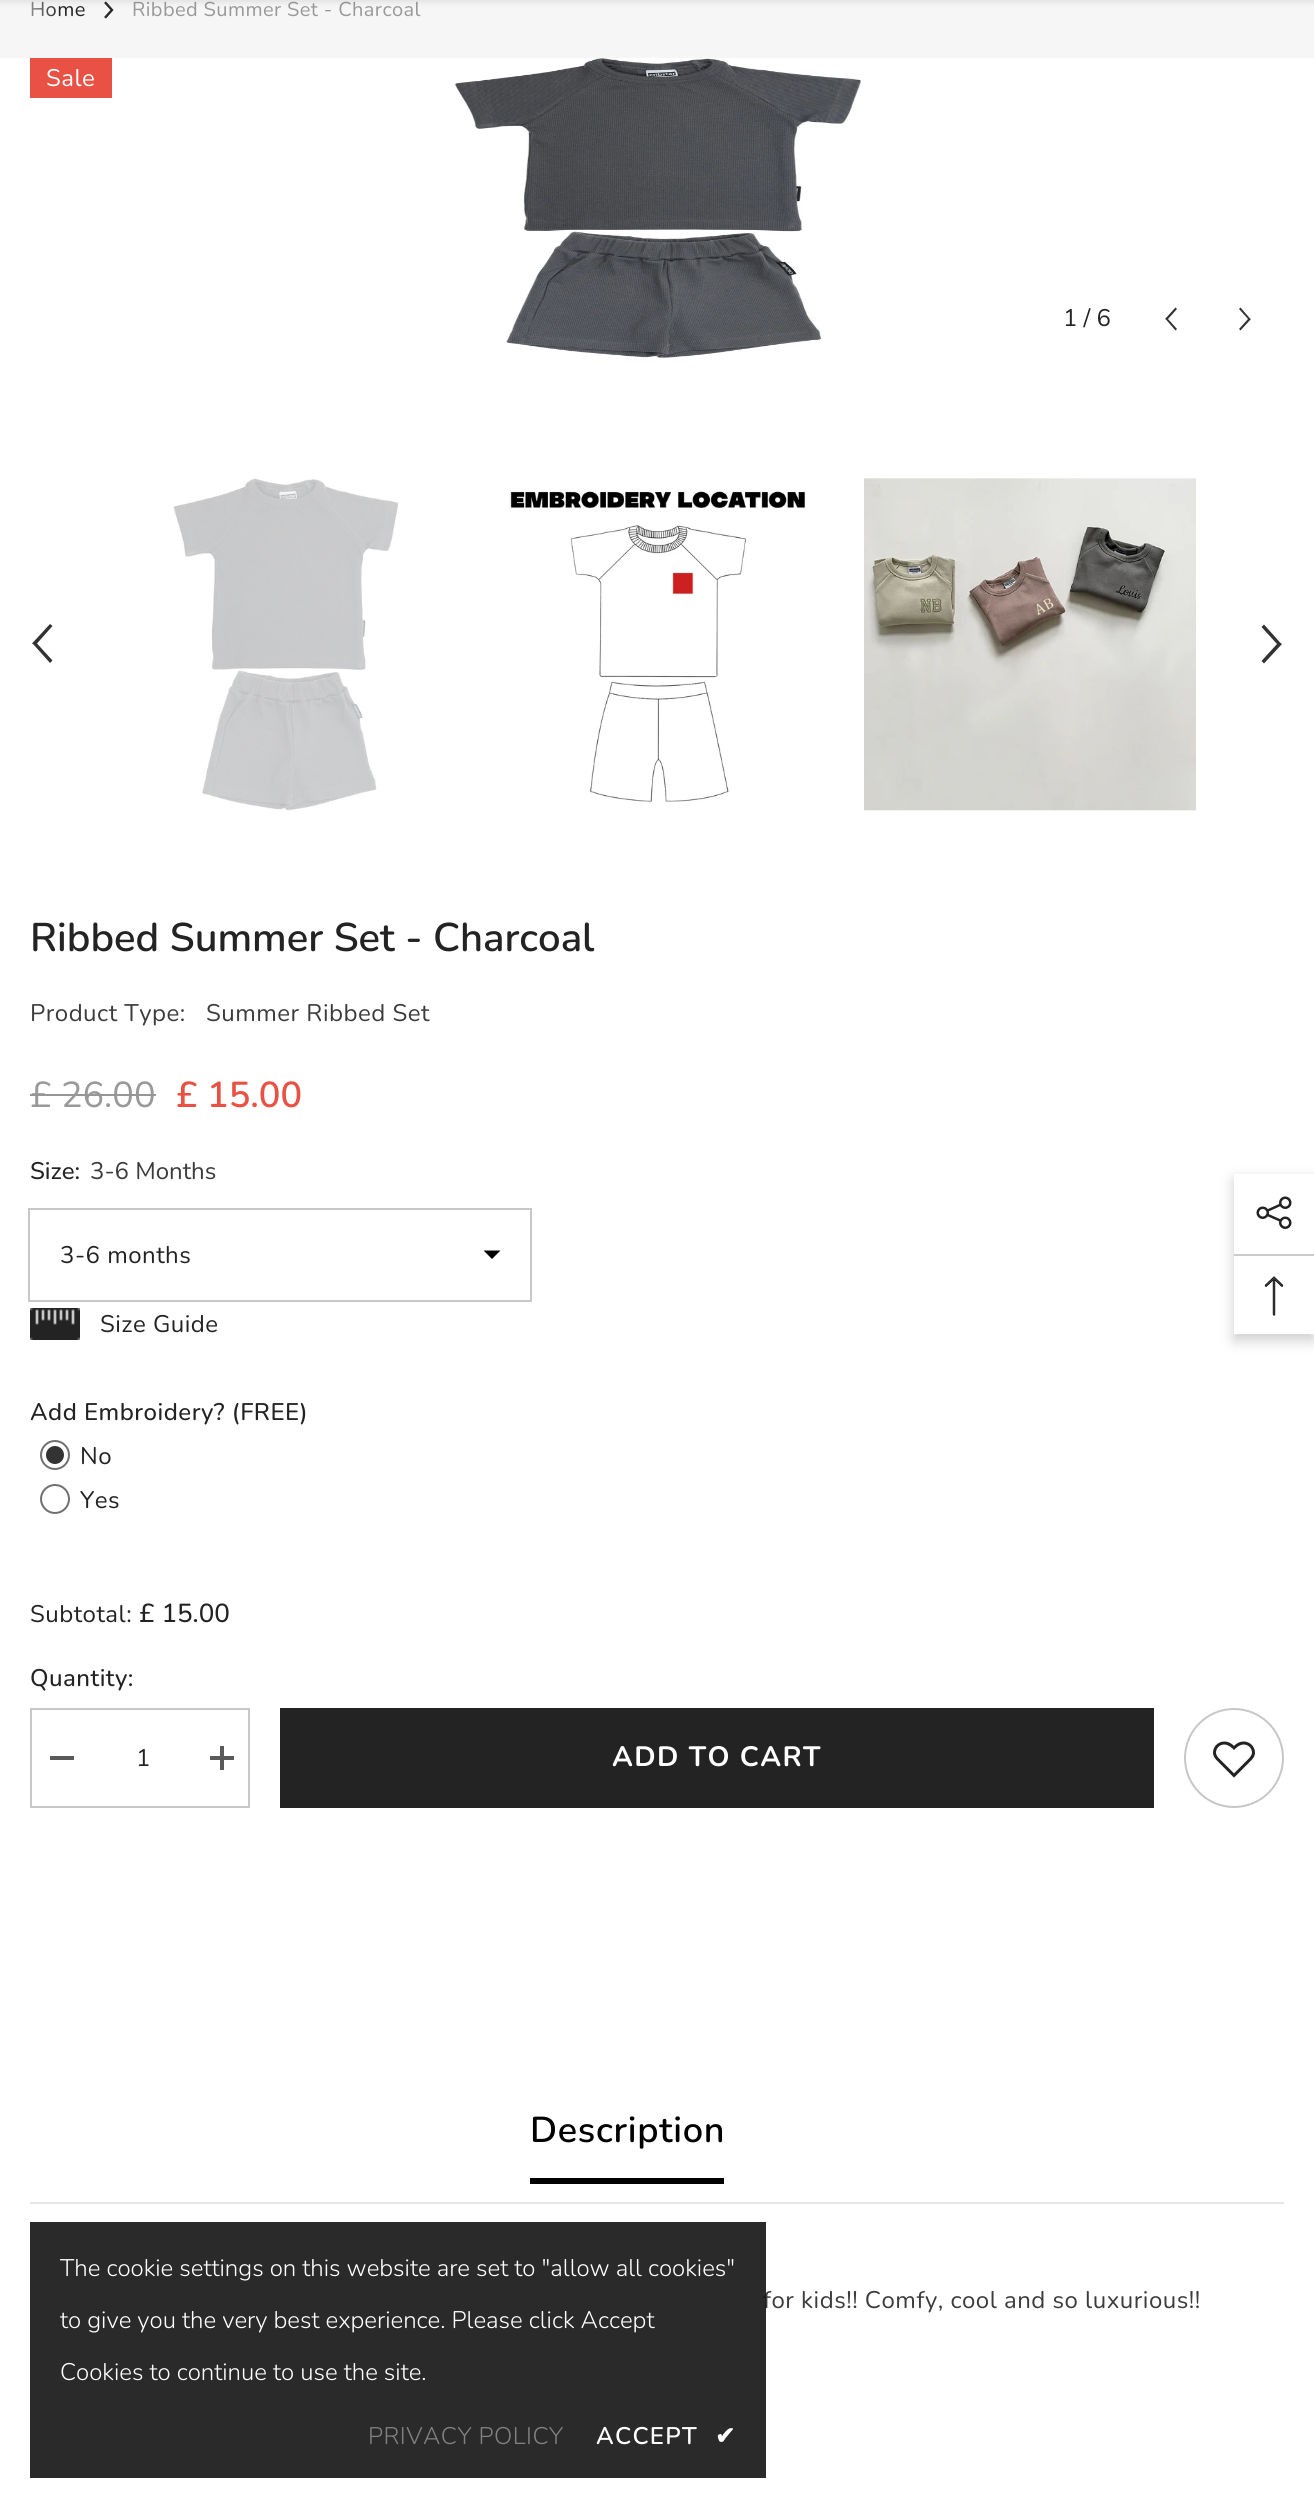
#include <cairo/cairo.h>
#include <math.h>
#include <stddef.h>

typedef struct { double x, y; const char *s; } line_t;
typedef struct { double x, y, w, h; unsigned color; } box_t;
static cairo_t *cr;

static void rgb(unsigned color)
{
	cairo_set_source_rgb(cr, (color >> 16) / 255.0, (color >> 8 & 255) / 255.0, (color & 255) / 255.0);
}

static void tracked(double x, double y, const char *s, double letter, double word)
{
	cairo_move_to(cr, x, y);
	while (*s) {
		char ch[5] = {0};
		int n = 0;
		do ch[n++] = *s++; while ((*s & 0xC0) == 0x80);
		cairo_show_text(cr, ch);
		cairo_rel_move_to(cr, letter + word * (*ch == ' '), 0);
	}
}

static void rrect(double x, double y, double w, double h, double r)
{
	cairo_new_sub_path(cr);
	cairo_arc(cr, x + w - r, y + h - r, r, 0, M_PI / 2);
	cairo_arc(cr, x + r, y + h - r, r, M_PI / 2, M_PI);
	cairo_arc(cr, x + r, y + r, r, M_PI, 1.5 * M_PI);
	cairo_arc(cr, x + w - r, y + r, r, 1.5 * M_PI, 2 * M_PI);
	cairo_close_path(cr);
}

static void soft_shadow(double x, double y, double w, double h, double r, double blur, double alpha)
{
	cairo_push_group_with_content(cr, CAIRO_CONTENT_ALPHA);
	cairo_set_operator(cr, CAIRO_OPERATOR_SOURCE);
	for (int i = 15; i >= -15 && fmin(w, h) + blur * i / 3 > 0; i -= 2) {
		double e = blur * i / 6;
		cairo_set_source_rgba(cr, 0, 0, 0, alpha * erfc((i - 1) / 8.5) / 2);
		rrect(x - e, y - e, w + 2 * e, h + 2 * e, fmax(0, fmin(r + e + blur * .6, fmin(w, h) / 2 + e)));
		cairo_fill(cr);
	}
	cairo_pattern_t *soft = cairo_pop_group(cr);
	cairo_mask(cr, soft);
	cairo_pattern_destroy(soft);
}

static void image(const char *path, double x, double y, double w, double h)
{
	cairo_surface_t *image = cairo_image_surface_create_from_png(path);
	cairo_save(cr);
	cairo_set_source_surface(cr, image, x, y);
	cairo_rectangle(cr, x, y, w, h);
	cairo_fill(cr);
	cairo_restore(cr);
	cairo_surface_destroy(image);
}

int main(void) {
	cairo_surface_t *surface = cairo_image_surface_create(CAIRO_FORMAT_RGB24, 1314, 2508);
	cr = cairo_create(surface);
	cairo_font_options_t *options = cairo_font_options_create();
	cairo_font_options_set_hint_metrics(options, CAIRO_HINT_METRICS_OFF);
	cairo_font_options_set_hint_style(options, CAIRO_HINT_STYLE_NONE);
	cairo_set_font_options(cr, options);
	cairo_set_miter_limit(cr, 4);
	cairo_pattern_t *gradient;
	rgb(0xffffff);
	cairo_paint(cr);
	rgb(0xf6f6f6);
	cairo_rectangle(cr, 0, 0, 1314, 58);
	cairo_fill(cr);
	image("img/1.png", 104, 1, 10, 18);
	rgb(0xe95144);
	cairo_rectangle(cr, 30, 58, 82, 40);
	cairo_fill(cr);
	image("img/2.png", 455, 58, 406, 300);
	rgb(0x323232);
	cairo_new_path(cr);
	cairo_move_to(cr, 1175.5, 330.5);
	cairo_line_to(cr, 1177, 329);
	cairo_line_to(cr, 1168, 319);
	cairo_line_to(cr, 1177, 309);
	cairo_line_to(cr, 1175.5, 307.5);
	cairo_line_to(cr, 1165, 319);
	cairo_line_to(cr, 1166, 319.5);
	cairo_close_path(cr);
	cairo_fill(cr);
	cairo_new_path(cr);
	cairo_move_to(cr, 1240.5, 307.5);
	cairo_line_to(cr, 1239, 309);
	cairo_line_to(cr, 1248, 319);
	cairo_line_to(cr, 1239, 329);
	cairo_line_to(cr, 1240.5, 330.5);
	cairo_line_to(cr, 1251, 319);
	cairo_line_to(cr, 1250, 318.5);
	cairo_close_path(cr);
	cairo_fill(cr);
	cairo_new_path(cr);
	cairo_move_to(cr, 50, 663);
	cairo_line_to(cr, 52.5, 660.5);
	cairo_line_to(cr, 37, 643.5);
	cairo_line_to(cr, 52.5, 626);
	cairo_line_to(cr, 50, 624);
	cairo_line_to(cr, 32, 643.5);
	cairo_line_to(cr, 33.5, 644.5);
	cairo_close_path(cr);
	cairo_fill(cr);
	image("img/3.png", 173, 478, 225, 333);
	image("img/4.png", 509, 490, 297, 312);
	image("img/5.png", 864, 478, 332, 333);
	cairo_new_path(cr);
	cairo_move_to(cr, 1264, 624.5);
	cairo_line_to(cr, 1261.5, 627);
	cairo_line_to(cr, 1277, 644);
	cairo_line_to(cr, 1261.5, 661);
	cairo_line_to(cr, 1264, 663.5);
	cairo_line_to(cr, 1282, 644);
	cairo_line_to(cr, 1280.5, 643);
	cairo_close_path(cr);
	cairo_fill(cr);
	cairo_rectangle(cr, 29, 1209, 502, 92);
	rgb(0xc7c7c7);
	cairo_stroke(cr);
	rgb(0x000000);
	cairo_new_path(cr);
	cairo_move_to(cr, 483.5, 1250.5);
	cairo_line_to(cr, 492, 1259);
	cairo_line_to(cr, 500.5, 1250.5);
	cairo_close_path(cr);
	cairo_fill(cr);
	image("img/6.png", 30, 1308, 50, 32);
	cairo_arc(cr, 55, 1455, 14, 0, 2 * M_PI);
	rgb(0x707070);
	cairo_stroke(cr);
	rgb(0x333333);
	cairo_arc(cr, 55, 1455, 9, 0, 2 * M_PI);
	cairo_fill(cr);
	cairo_arc(cr, 55, 1499, 14, 0, 2 * M_PI);
	rgb(0x707070);
	cairo_stroke(cr);
	cairo_rectangle(cr, 31, 1709, 218, 98);
	rgb(0xc7c7c7);
	cairo_stroke(cr);
	{
		static const box_t items[] = {
			{50, 1756, 24, 4, 0x5a5a5a},
			{210, 1756, 24, 4, 0x5a5a5a},
			{220, 1746, 4, 24, 0x5a5a5a},
			{280, 1708, 874, 100, 0x232323},
		};
		for (size_t i = 0; i < sizeof items / sizeof *items; i++) {
			rgb(items[i].color);
			cairo_rectangle(cr, items[i].x, items[i].y, items[i].w, items[i].h);
			cairo_fill(cr);
		}
	}
	cairo_arc(cr, 1234, 1758, 49, 0, 2 * M_PI);
	rgb(0xc7c7c7);
	cairo_stroke(cr);
	image("img/7.png", 1213, 1741, 42, 37);
	rgb(0xe6e6e6);
	cairo_rectangle(cr, 30, 2202, 1254, 2);
	cairo_fill(cr);
	rgb(0x000000);
	cairo_rectangle(cr, 530, 2178, 194, 6);
	cairo_fill(cr);
	cairo_save(cr);
	cairo_set_fill_rule(cr, CAIRO_FILL_RULE_EVEN_ODD);
	cairo_new_path(cr);
	cairo_move_to(cr, 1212, 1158);
	cairo_line_to(cr, 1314, 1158);
	cairo_line_to(cr, 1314, 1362);
	cairo_line_to(cr, 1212, 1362);
	cairo_close_path(cr);
	cairo_move_to(cr, 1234, 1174);
	cairo_line_to(cr, 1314, 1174);
	cairo_line_to(cr, 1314, 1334);
	cairo_line_to(cr, 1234, 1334);
	cairo_close_path(cr);
	cairo_clip(cr);
	rgb(0x000000);
	soft_shadow(1234, 1180, 80, 160, 0, 7, 0.2);
	cairo_restore(cr);
	image("img/8.png", 1256, 1196, 36, 33);
	rgb(0xcccccc);
	cairo_rectangle(cr, 1234, 1254, 80, 2);
	cairo_fill(cr);
	image("img/9.png", 1264, 1276, 20, 40);
	cairo_select_font_face(cr, "Nunito", CAIRO_FONT_SLANT_NORMAL, CAIRO_FONT_WEIGHT_NORMAL);
	cairo_set_font_size(cr, 20);
	rgb(0x232323);
	tracked(30, 16, "Home", 0.4, 0);
	rgb(0x999999);
	tracked(132, 16, "Ribbed Summer Set - Charcoal", 0.4, 0);
	gradient = cairo_pattern_create_linear(0, 13, 60, 13);
	cairo_pattern_add_color_stop_rgba(gradient, 0, 0.965, 0.965, 0.965, 1);
	cairo_pattern_add_color_stop_rgba(gradient, 1, 0.965, 0.965, 0.965, 0);
	cairo_set_source(cr, gradient);
	cairo_pattern_destroy(gradient);
	cairo_rectangle(cr, 31, 1, 25, 16);
	cairo_fill(cr);
	rgb(0x000000);
	soft_shadow(0, -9, 1314, 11, 0, 3, 0.1);
	cairo_set_font_size(cr, 24);
	rgb(0xffffff);
	tracked(46, 86, "Sale", 0.5, 0);
	rgb(0x232323);
	cairo_move_to(cr, 1063, 326);
	cairo_show_text(cr, "1 / 6");
	cairo_select_font_face(cr, "Nunito SemiBold", CAIRO_FONT_SLANT_NORMAL, CAIRO_FONT_WEIGHT_NORMAL);
	cairo_set_font_size(cr, 40);
	cairo_move_to(cr, 30, 951);
	cairo_show_text(cr, "Ribbed Summer Set - Charcoal");
	cairo_select_font_face(cr, "Nunito", CAIRO_FONT_SLANT_NORMAL, CAIRO_FONT_WEIGHT_NORMAL);
	cairo_set_font_size(cr, 24);
	rgb(0x3c3c3c);
	tracked(30, 1021, "Product Type:", 0.5, 0);
	tracked(206, 1021, "Summer Ribbed Set", 0.5, 0);
	cairo_set_font_size(cr, 36);
	rgb(0x999999);
	cairo_move_to(cr, 30, 1107);
	cairo_show_text(cr, "£ 26.00");
	rgb(0x969696);
	cairo_rectangle(cr, 30, 1094, 126, 2);
	cairo_fill(cr);
	cairo_select_font_face(cr, "Nunito SemiBold", CAIRO_FONT_SLANT_NORMAL, CAIRO_FONT_WEIGHT_NORMAL);
	rgb(0xe95144);
	cairo_move_to(cr, 176, 1107);
	cairo_show_text(cr, "£ 15.00");
	cairo_select_font_face(cr, "Nunito Medium", CAIRO_FONT_SLANT_NORMAL, CAIRO_FONT_WEIGHT_NORMAL);
	cairo_set_font_size(cr, 24);
	rgb(0x232323);
	cairo_move_to(cr, 30, 1179);
	cairo_show_text(cr, "Size:");
	cairo_select_font_face(cr, "Nunito", CAIRO_FONT_SLANT_NORMAL, CAIRO_FONT_WEIGHT_NORMAL);
	rgb(0x3c3c3c);
	cairo_move_to(cr, 90, 1179);
	cairo_show_text(cr, "3-6 Months");
	rgb(0x232323);
	tracked(60, 1263, "3-6 months", 0.5, 0);
	tracked(100, 1332, "Size Guide", 0.5, 0);
	cairo_select_font_face(cr, "Nunito Medium", CAIRO_FONT_SLANT_NORMAL, CAIRO_FONT_WEIGHT_NORMAL);
	tracked(30, 1420, "Add Embroidery? (FREE)", 0.5, 0);
	cairo_select_font_face(cr, "Nunito", CAIRO_FONT_SLANT_NORMAL, CAIRO_FONT_WEIGHT_NORMAL);
	{
		static const line_t items[] = {
			{80, 1464, "No"},
			{80, 1508, "Yes"},
			{30, 1622, "Subtotal:"},
		};
		for (size_t i = 0; i < sizeof items / sizeof *items; i++) {
			tracked(items[i].x, items[i].y, items[i].s, 0.5, 0);
		}
	}
	cairo_select_font_face(cr, "Nunito Medium", CAIRO_FONT_SLANT_NORMAL, CAIRO_FONT_WEIGHT_NORMAL);
	cairo_set_font_size(cr, 26);
	cairo_move_to(cr, 139, 1622);
	cairo_show_text(cr, "£ 15.00");
	cairo_set_font_size(cr, 24);
	tracked(30, 1686, "Quantity:", 0.5, 0);
	cairo_select_font_face(cr, "Nunito", CAIRO_FONT_SLANT_NORMAL, CAIRO_FONT_WEIGHT_NORMAL);
	tracked(136, 1766, "1", 0.5, 0);
	cairo_select_font_face(cr, "Nunito", CAIRO_FONT_SLANT_NORMAL, CAIRO_FONT_WEIGHT_BOLD);
	cairo_set_font_size(cr, 28);
	rgb(0xffffff);
	tracked(612, 1766, "ADD TO CART", 1.4, 0);
	cairo_select_font_face(cr, "Nunito SemiBold", CAIRO_FONT_SLANT_NORMAL, CAIRO_FONT_WEIGHT_NORMAL);
	cairo_set_font_size(cr, 36);
	rgb(0x000000);
	tracked(530, 2142, "Description", 0.75, 0);
	cairo_select_font_face(cr, "Nunito", CAIRO_FONT_SLANT_NORMAL, CAIRO_FONT_WEIGHT_NORMAL);
	cairo_set_font_size(cr, 24);
	rgb(0x3c3c3c);
	tracked(763, 2308, "for kids!! Comfy, cool and so luxurious!!", 0.5, 0);
	cairo_set_source_rgba(cr, 0.078, 0.078, 0.078, 0.9);
	cairo_rectangle(cr, 30, 2222, 736, 256);
	cairo_fill(cr);
	cairo_select_font_face(cr, "Nunito Light", CAIRO_FONT_SLANT_NORMAL, CAIRO_FONT_WEIGHT_NORMAL);
	rgb(0xffffff);
	{
		static const line_t items[] = {
			{60, 2276, "The cookie settings on this website are set to \"allow all cookies\""},
			{60, 2328, "to give you the very best experience. Please click Accept"},
			{60, 2380, "Cookies to continue to use the site."},
		};
		for (size_t i = 0; i < sizeof items / sizeof *items; i++) {
			cairo_move_to(cr, items[i].x, items[i].y);
			cairo_show_text(cr, items[i].s);
		}
	}
	rgb(0x818181);
	tracked(368, 2444, "PRIVACY POLICY", 0.5, 0);
	cairo_select_font_face(cr, "Nunito SemiBold", CAIRO_FONT_SLANT_NORMAL, CAIRO_FONT_WEIGHT_NORMAL);
	rgb(0xffffff);
	tracked(596, 2444, "ACCEPT", 1.25, 0);
	cairo_select_font_face(cr, "DejaVu Sans", CAIRO_FONT_SLANT_NORMAL, CAIRO_FONT_WEIGHT_BOLD);
	tracked(715, 2444, "✔", 1.25, 0);
	cairo_surface_write_to_png(surface, "page.png");
	cairo_font_options_destroy(options);
	cairo_destroy(cr);
	cairo_surface_destroy(surface);
	return 0;
}
